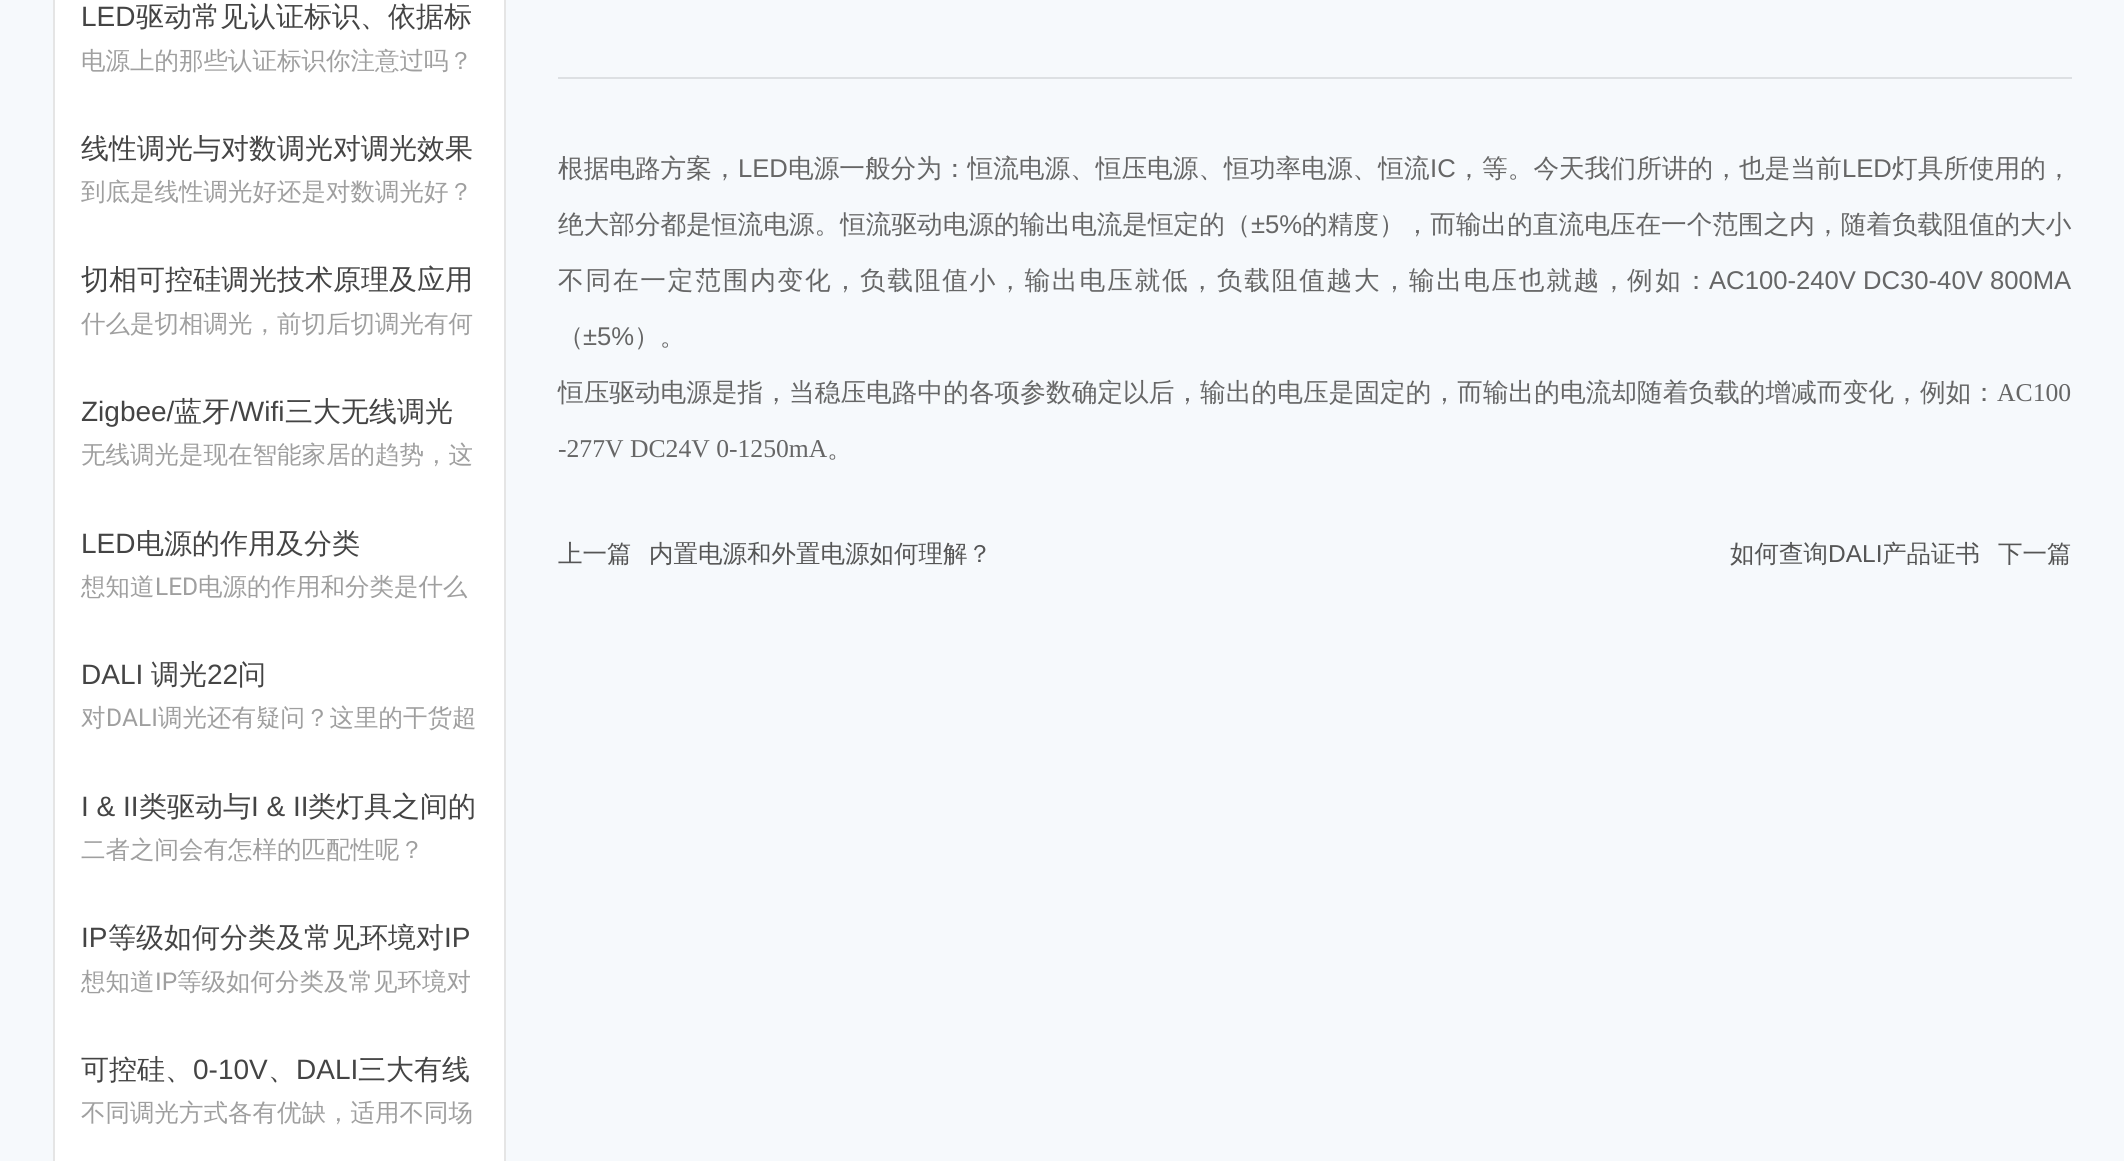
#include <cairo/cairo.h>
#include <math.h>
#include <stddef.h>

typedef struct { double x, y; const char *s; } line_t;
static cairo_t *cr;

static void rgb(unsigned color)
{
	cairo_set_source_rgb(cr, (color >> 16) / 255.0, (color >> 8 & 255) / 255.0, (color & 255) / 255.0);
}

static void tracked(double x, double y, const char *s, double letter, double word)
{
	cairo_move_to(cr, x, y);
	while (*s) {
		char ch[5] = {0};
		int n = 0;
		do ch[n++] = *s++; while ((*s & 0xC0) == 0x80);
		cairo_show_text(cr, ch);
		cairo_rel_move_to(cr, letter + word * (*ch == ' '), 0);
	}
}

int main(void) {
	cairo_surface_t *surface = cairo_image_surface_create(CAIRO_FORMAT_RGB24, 2124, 1161);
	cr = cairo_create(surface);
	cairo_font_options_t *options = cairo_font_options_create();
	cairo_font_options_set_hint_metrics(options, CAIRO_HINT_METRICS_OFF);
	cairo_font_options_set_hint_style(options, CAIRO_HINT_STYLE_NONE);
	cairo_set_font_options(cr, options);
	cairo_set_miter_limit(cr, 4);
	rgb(0xf6f9fc);
	cairo_paint(cr);
	rgb(0xffffff);
	cairo_rectangle(cr, 54, -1, 451, 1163);
	cairo_fill_preserve(cr);
	rgb(0xe5e5e5);
	cairo_stroke(cr);
	rgb(0xdde0e3);
	cairo_rectangle(cr, 558, 77, 1514, 2);
	cairo_fill(cr);
	cairo_select_font_face(cr, "Liberation Sans", CAIRO_FONT_SLANT_NORMAL, CAIRO_FONT_WEIGHT_NORMAL);
	cairo_set_font_size(cr, 28);
	rgb(0x444444);
	cairo_move_to(cr, 81, 26);
	cairo_show_text(cr, "LED");
	cairo_select_font_face(cr, "WenQuanYi Zen Hei Medium", CAIRO_FONT_SLANT_NORMAL, CAIRO_FONT_WEIGHT_NORMAL);
	cairo_move_to(cr, 136, 26);
	cairo_show_text(cr, "驱动常见认证标识、依据标");
	cairo_set_font_size(cr, 24.5);
	rgb(0x9f9f9f);
	cairo_move_to(cr, 81, 69);
	cairo_show_text(cr, "电源上的那些认证标识你注意过吗？");
	cairo_set_font_size(cr, 28);
	rgb(0x444444);
	cairo_move_to(cr, 81, 158);
	cairo_show_text(cr, "线性调光与对数调光对调光效果");
	cairo_set_font_size(cr, 24.5);
	rgb(0x9f9f9f);
	cairo_move_to(cr, 81, 200);
	cairo_show_text(cr, "到底是线性调光好还是对数调光好？");
	cairo_set_font_size(cr, 28);
	rgb(0x444444);
	cairo_move_to(cr, 81, 289);
	cairo_show_text(cr, "切相可控硅调光技术原理及应用");
	cairo_set_font_size(cr, 24.5);
	rgb(0x9f9f9f);
	cairo_move_to(cr, 81, 332);
	cairo_show_text(cr, "什么是切相调光，前切后切调光有何");
	cairo_select_font_face(cr, "Liberation Sans", CAIRO_FONT_SLANT_NORMAL, CAIRO_FONT_WEIGHT_NORMAL);
	cairo_set_font_size(cr, 28);
	rgb(0x444444);
	cairo_move_to(cr, 81, 421);
	cairo_show_text(cr, "Zigbee/");
	cairo_select_font_face(cr, "WenQuanYi Zen Hei Medium", CAIRO_FONT_SLANT_NORMAL, CAIRO_FONT_WEIGHT_NORMAL);
	cairo_move_to(cr, 174, 421);
	cairo_show_text(cr, "蓝牙");
	cairo_select_font_face(cr, "Liberation Sans", CAIRO_FONT_SLANT_NORMAL, CAIRO_FONT_WEIGHT_NORMAL);
	cairo_move_to(cr, 230, 421);
	cairo_show_text(cr, "/Wifi");
	cairo_select_font_face(cr, "WenQuanYi Zen Hei Medium", CAIRO_FONT_SLANT_NORMAL, CAIRO_FONT_WEIGHT_NORMAL);
	cairo_move_to(cr, 285, 421);
	cairo_show_text(cr, "三大无线调光");
	cairo_set_font_size(cr, 24.5);
	rgb(0x9f9f9f);
	cairo_move_to(cr, 81, 463);
	cairo_show_text(cr, "无线调光是现在智能家居的趋势，这");
	cairo_select_font_face(cr, "Liberation Sans", CAIRO_FONT_SLANT_NORMAL, CAIRO_FONT_WEIGHT_NORMAL);
	cairo_set_font_size(cr, 28);
	rgb(0x444444);
	cairo_move_to(cr, 81, 553);
	cairo_show_text(cr, "LED");
	cairo_select_font_face(cr, "WenQuanYi Zen Hei Medium", CAIRO_FONT_SLANT_NORMAL, CAIRO_FONT_WEIGHT_NORMAL);
	cairo_move_to(cr, 136, 553);
	cairo_show_text(cr, "电源的作用及分类");
	cairo_set_font_size(cr, 24.5);
	rgb(0x9f9f9f);
	cairo_move_to(cr, 81, 595);
	cairo_show_text(cr, "想知道");
	cairo_select_font_face(cr, "Roboto", CAIRO_FONT_SLANT_NORMAL, CAIRO_FONT_WEIGHT_NORMAL);
	cairo_move_to(cr, 155, 595);
	cairo_show_text(cr, "LED");
	cairo_select_font_face(cr, "WenQuanYi Zen Hei Medium", CAIRO_FONT_SLANT_NORMAL, CAIRO_FONT_WEIGHT_NORMAL);
	cairo_move_to(cr, 198, 595);
	cairo_show_text(cr, "电源的作用和分类是什么");
	cairo_select_font_face(cr, "Liberation Sans", CAIRO_FONT_SLANT_NORMAL, CAIRO_FONT_WEIGHT_NORMAL);
	cairo_set_font_size(cr, 28);
	rgb(0x444444);
	cairo_move_to(cr, 81, 684);
	cairo_show_text(cr, "DALI");
	cairo_select_font_face(cr, "WenQuanYi Zen Hei Medium", CAIRO_FONT_SLANT_NORMAL, CAIRO_FONT_WEIGHT_NORMAL);
	cairo_move_to(cr, 151, 684);
	cairo_show_text(cr, "调光");
	cairo_select_font_face(cr, "Liberation Sans", CAIRO_FONT_SLANT_NORMAL, CAIRO_FONT_WEIGHT_NORMAL);
	cairo_move_to(cr, 207, 684);
	cairo_show_text(cr, "22");
	cairo_select_font_face(cr, "WenQuanYi Zen Hei Medium", CAIRO_FONT_SLANT_NORMAL, CAIRO_FONT_WEIGHT_NORMAL);
	cairo_move_to(cr, 238, 684);
	cairo_show_text(cr, "问");
	cairo_set_font_size(cr, 24.5);
	rgb(0x9f9f9f);
	cairo_move_to(cr, 81, 726);
	cairo_show_text(cr, "对");
	cairo_select_font_face(cr, "Roboto", CAIRO_FONT_SLANT_NORMAL, CAIRO_FONT_WEIGHT_NORMAL);
	cairo_move_to(cr, 106, 726);
	cairo_show_text(cr, "DALI");
	cairo_select_font_face(cr, "WenQuanYi Zen Hei Medium", CAIRO_FONT_SLANT_NORMAL, CAIRO_FONT_WEIGHT_NORMAL);
	cairo_move_to(cr, 158, 726);
	cairo_show_text(cr, "调光还有疑问？这里的干货超");
	cairo_select_font_face(cr, "Liberation Sans", CAIRO_FONT_SLANT_NORMAL, CAIRO_FONT_WEIGHT_NORMAL);
	cairo_set_font_size(cr, 28);
	rgb(0x444444);
	cairo_move_to(cr, 81, 816);
	cairo_show_text(cr, "I & II");
	cairo_select_font_face(cr, "WenQuanYi Zen Hei Medium", CAIRO_FONT_SLANT_NORMAL, CAIRO_FONT_WEIGHT_NORMAL);
	cairo_move_to(cr, 139, 816);
	cairo_show_text(cr, "类驱动与");
	cairo_select_font_face(cr, "Liberation Sans", CAIRO_FONT_SLANT_NORMAL, CAIRO_FONT_WEIGHT_NORMAL);
	cairo_move_to(cr, 251, 816);
	cairo_show_text(cr, "I & II");
	cairo_select_font_face(cr, "WenQuanYi Zen Hei Medium", CAIRO_FONT_SLANT_NORMAL, CAIRO_FONT_WEIGHT_NORMAL);
	cairo_move_to(cr, 308, 816);
	cairo_show_text(cr, "类灯具之间的");
	cairo_set_font_size(cr, 24.5);
	rgb(0x9f9f9f);
	cairo_move_to(cr, 81, 858);
	cairo_show_text(cr, "二者之间会有怎样的匹配性呢？");
	cairo_select_font_face(cr, "Liberation Sans", CAIRO_FONT_SLANT_NORMAL, CAIRO_FONT_WEIGHT_NORMAL);
	cairo_set_font_size(cr, 28);
	rgb(0x444444);
	cairo_move_to(cr, 81, 947);
	cairo_show_text(cr, "IP");
	cairo_select_font_face(cr, "WenQuanYi Zen Hei Medium", CAIRO_FONT_SLANT_NORMAL, CAIRO_FONT_WEIGHT_NORMAL);
	cairo_move_to(cr, 108, 947);
	cairo_show_text(cr, "等级如何分类及常见环境对");
	cairo_select_font_face(cr, "Liberation Sans", CAIRO_FONT_SLANT_NORMAL, CAIRO_FONT_WEIGHT_NORMAL);
	cairo_move_to(cr, 444, 947);
	cairo_show_text(cr, "IP");
	cairo_select_font_face(cr, "WenQuanYi Zen Hei Medium", CAIRO_FONT_SLANT_NORMAL, CAIRO_FONT_WEIGHT_NORMAL);
	cairo_set_font_size(cr, 24.5);
	rgb(0x9f9f9f);
	cairo_move_to(cr, 81, 990);
	cairo_show_text(cr, "想知道");
	cairo_select_font_face(cr, "Roboto", CAIRO_FONT_SLANT_NORMAL, CAIRO_FONT_WEIGHT_NORMAL);
	cairo_move_to(cr, 155, 990);
	cairo_show_text(cr, "IP");
	cairo_select_font_face(cr, "WenQuanYi Zen Hei Medium", CAIRO_FONT_SLANT_NORMAL, CAIRO_FONT_WEIGHT_NORMAL);
	cairo_move_to(cr, 177, 990);
	cairo_show_text(cr, "等级如何分类及常见环境对");
	cairo_set_font_size(cr, 28);
	rgb(0x444444);
	cairo_move_to(cr, 81, 1079);
	cairo_show_text(cr, "可控硅、");
	cairo_select_font_face(cr, "Liberation Sans", CAIRO_FONT_SLANT_NORMAL, CAIRO_FONT_WEIGHT_NORMAL);
	cairo_move_to(cr, 193, 1079);
	cairo_show_text(cr, "0-10V");
	cairo_select_font_face(cr, "WenQuanYi Zen Hei Medium", CAIRO_FONT_SLANT_NORMAL, CAIRO_FONT_WEIGHT_NORMAL);
	cairo_move_to(cr, 268, 1079);
	cairo_show_text(cr, "、");
	cairo_select_font_face(cr, "Liberation Sans", CAIRO_FONT_SLANT_NORMAL, CAIRO_FONT_WEIGHT_NORMAL);
	cairo_move_to(cr, 296, 1079);
	cairo_show_text(cr, "DALI");
	cairo_select_font_face(cr, "WenQuanYi Zen Hei Medium", CAIRO_FONT_SLANT_NORMAL, CAIRO_FONT_WEIGHT_NORMAL);
	cairo_move_to(cr, 358, 1079);
	cairo_show_text(cr, "三大有线");
	cairo_set_font_size(cr, 24.5);
	rgb(0x9f9f9f);
	cairo_move_to(cr, 81, 1121);
	cairo_show_text(cr, "不同调光方式各有优缺，适用不同场");
	cairo_set_font_size(cr, 25.65);
	rgb(0x666666);
	cairo_move_to(cr, 558, 177);
	cairo_show_text(cr, "根据电路方案，");
	cairo_select_font_face(cr, "Liberation Sans", CAIRO_FONT_SLANT_NORMAL, CAIRO_FONT_WEIGHT_NORMAL);
	cairo_move_to(cr, 738, 177);
	cairo_show_text(cr, "LED");
	cairo_select_font_face(cr, "WenQuanYi Zen Hei Medium", CAIRO_FONT_SLANT_NORMAL, CAIRO_FONT_WEIGHT_NORMAL);
	cairo_move_to(cr, 788, 177);
	cairo_show_text(cr, "电源一般分为：恒流电源、恒压电源、恒");
	cairo_move_to(cr, 1250, 177);
	cairo_show_text(cr, "功率电源、恒流");
	cairo_select_font_face(cr, "Liberation Sans", CAIRO_FONT_SLANT_NORMAL, CAIRO_FONT_WEIGHT_NORMAL);
	cairo_move_to(cr, 1430, 177);
	cairo_show_text(cr, "IC");
	cairo_select_font_face(cr, "WenQuanYi Zen Hei Medium", CAIRO_FONT_SLANT_NORMAL, CAIRO_FONT_WEIGHT_NORMAL);
	cairo_move_to(cr, 1456, 177);
	cairo_show_text(cr, "，");
	tracked(1482, 177, "等。今天我们所讲的，也是当前", 0.05, 0);
	cairo_select_font_face(cr, "Liberation Sans", CAIRO_FONT_SLANT_NORMAL, CAIRO_FONT_WEIGHT_NORMAL);
	cairo_move_to(cr, 1842, 177);
	cairo_show_text(cr, "LED");
	cairo_select_font_face(cr, "WenQuanYi Zen Hei Medium", CAIRO_FONT_SLANT_NORMAL, CAIRO_FONT_WEIGHT_NORMAL);
	cairo_move_to(cr, 1892, 177);
	cairo_show_text(cr, "灯具所使用的，");
	cairo_move_to(cr, 558, 233);
	cairo_show_text(cr, "绝大部分都是恒流电源。恒流驱动电源的输出电流是恒定的（");
	cairo_select_font_face(cr, "Liberation Sans", CAIRO_FONT_SLANT_NORMAL, CAIRO_FONT_WEIGHT_NORMAL);
	cairo_move_to(cr, 1251, 233);
	cairo_show_text(cr, "±5%");
	cairo_select_font_face(cr, "WenQuanYi Zen Hei Medium", CAIRO_FONT_SLANT_NORMAL, CAIRO_FONT_WEIGHT_NORMAL);
	cairo_move_to(cr, 1302, 233);
	cairo_show_text(cr, "的精度），而输出的直流电压在一个范围之内，随着负载阻值的大小");
	tracked(558, 289, "不同在一定范围内变化，负载阻值小，输出电压就低，负载阻值越大，输出电压也就越，", 1.8, 0);
	tracked(1627, 289, "例如：", 2.5, 0);
	cairo_select_font_face(cr, "Liberation Sans", CAIRO_FONT_SLANT_NORMAL, CAIRO_FONT_WEIGHT_NORMAL);
	cairo_move_to(cr, 1709, 289);
	cairo_show_text(cr, "AC100-240V DC30-40V 800MA");
	cairo_select_font_face(cr, "WenQuanYi Zen Hei Medium", CAIRO_FONT_SLANT_NORMAL, CAIRO_FONT_WEIGHT_NORMAL);
	cairo_move_to(cr, 558, 345);
	cairo_show_text(cr, "（");
	cairo_select_font_face(cr, "Liberation Sans", CAIRO_FONT_SLANT_NORMAL, CAIRO_FONT_WEIGHT_NORMAL);
	cairo_move_to(cr, 583, 345);
	cairo_show_text(cr, "±5%");
	cairo_select_font_face(cr, "WenQuanYi Zen Hei Medium", CAIRO_FONT_SLANT_NORMAL, CAIRO_FONT_WEIGHT_NORMAL);
	cairo_move_to(cr, 634, 345);
	cairo_show_text(cr, "）。");
	cairo_move_to(cr, 558, 401);
	cairo_show_text(cr, "恒压驱动电源是指，");
	tracked(789, 401, "当稳压电路中的各项参数确定以后，输出的电压是固定的，而输出的电流却随着负载的增减而变化，", 0.05, 0);
	cairo_move_to(cr, 1920, 401);
	cairo_show_text(cr, "例如：");
	cairo_select_font_face(cr, "Liberation Serif", CAIRO_FONT_SLANT_NORMAL, CAIRO_FONT_WEIGHT_NORMAL);
	cairo_move_to(cr, 1997, 401);
	cairo_show_text(cr, "AC100");
	cairo_move_to(cr, 558, 457);
	cairo_show_text(cr, "-277V DC24V 0-1250mA");
	cairo_select_font_face(cr, "WenQuanYi Zen Hei Medium", CAIRO_FONT_SLANT_NORMAL, CAIRO_FONT_WEIGHT_NORMAL);
	cairo_move_to(cr, 827, 457);
	cairo_show_text(cr, "。");
	cairo_set_font_size(cr, 24.5);
	rgb(0x555555);
	{
		static const line_t items[] = {
			{558, 562, "上一篇"},
			{649, 562, "内置电源和外置电源如何理解？"},
			{1730, 562, "如何查询"},
		};
		for (size_t i = 0; i < sizeof items / sizeof *items; i++) {
			cairo_move_to(cr, items[i].x, items[i].y);
			cairo_show_text(cr, items[i].s);
		}
	}
	cairo_select_font_face(cr, "Liberation Sans", CAIRO_FONT_SLANT_NORMAL, CAIRO_FONT_WEIGHT_NORMAL);
	cairo_move_to(cr, 1828, 562);
	cairo_show_text(cr, "DALI");
	cairo_select_font_face(cr, "WenQuanYi Zen Hei Medium", CAIRO_FONT_SLANT_NORMAL, CAIRO_FONT_WEIGHT_NORMAL);
	cairo_move_to(cr, 1882, 562);
	cairo_show_text(cr, "产品证书");
	cairo_move_to(cr, 1998, 562);
	cairo_show_text(cr, "下一篇");
	cairo_surface_write_to_png(surface, "page.png");
	cairo_font_options_destroy(options);
	cairo_destroy(cr);
	cairo_surface_destroy(surface);
	return 0;
}
